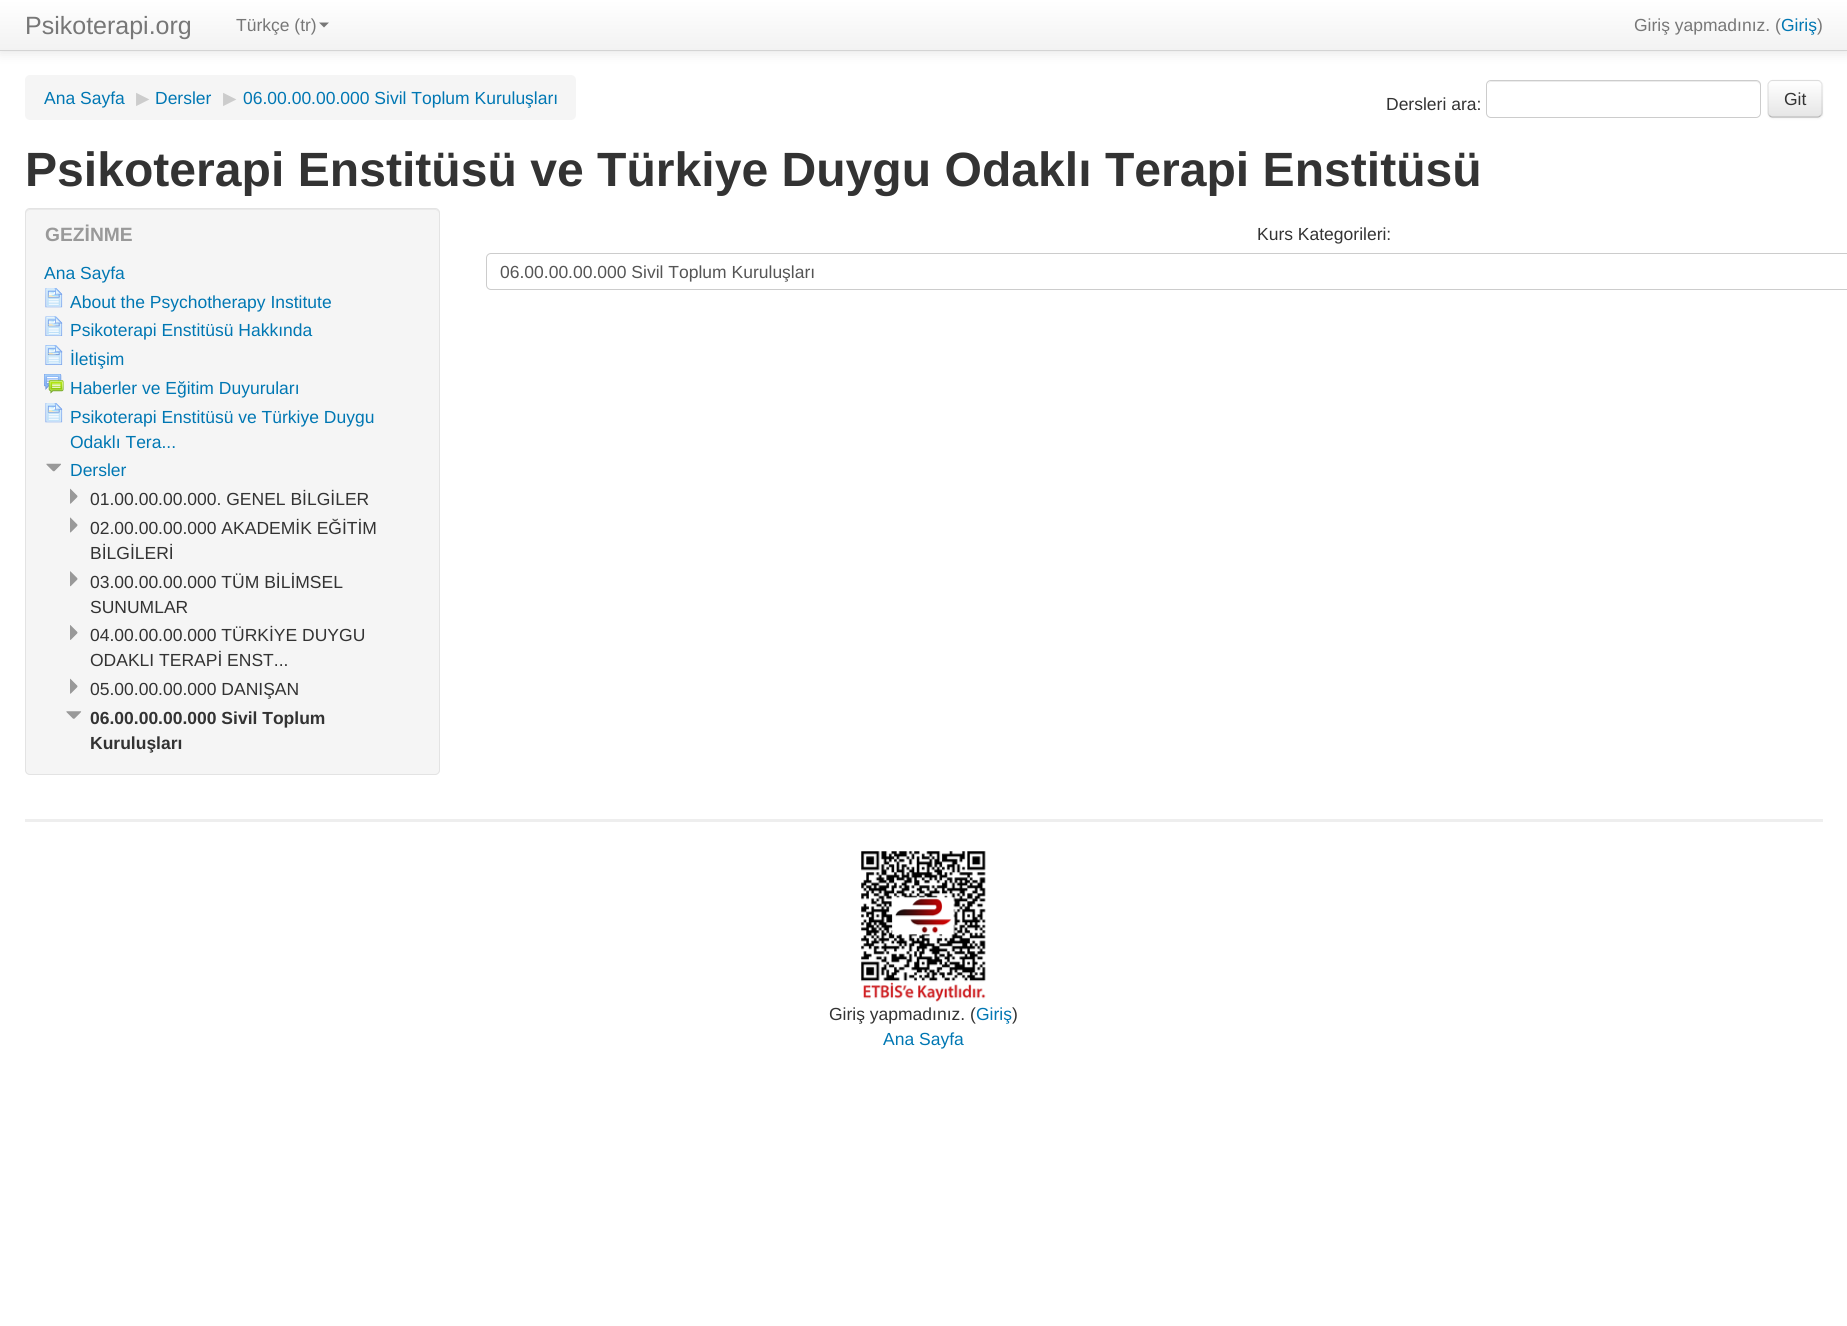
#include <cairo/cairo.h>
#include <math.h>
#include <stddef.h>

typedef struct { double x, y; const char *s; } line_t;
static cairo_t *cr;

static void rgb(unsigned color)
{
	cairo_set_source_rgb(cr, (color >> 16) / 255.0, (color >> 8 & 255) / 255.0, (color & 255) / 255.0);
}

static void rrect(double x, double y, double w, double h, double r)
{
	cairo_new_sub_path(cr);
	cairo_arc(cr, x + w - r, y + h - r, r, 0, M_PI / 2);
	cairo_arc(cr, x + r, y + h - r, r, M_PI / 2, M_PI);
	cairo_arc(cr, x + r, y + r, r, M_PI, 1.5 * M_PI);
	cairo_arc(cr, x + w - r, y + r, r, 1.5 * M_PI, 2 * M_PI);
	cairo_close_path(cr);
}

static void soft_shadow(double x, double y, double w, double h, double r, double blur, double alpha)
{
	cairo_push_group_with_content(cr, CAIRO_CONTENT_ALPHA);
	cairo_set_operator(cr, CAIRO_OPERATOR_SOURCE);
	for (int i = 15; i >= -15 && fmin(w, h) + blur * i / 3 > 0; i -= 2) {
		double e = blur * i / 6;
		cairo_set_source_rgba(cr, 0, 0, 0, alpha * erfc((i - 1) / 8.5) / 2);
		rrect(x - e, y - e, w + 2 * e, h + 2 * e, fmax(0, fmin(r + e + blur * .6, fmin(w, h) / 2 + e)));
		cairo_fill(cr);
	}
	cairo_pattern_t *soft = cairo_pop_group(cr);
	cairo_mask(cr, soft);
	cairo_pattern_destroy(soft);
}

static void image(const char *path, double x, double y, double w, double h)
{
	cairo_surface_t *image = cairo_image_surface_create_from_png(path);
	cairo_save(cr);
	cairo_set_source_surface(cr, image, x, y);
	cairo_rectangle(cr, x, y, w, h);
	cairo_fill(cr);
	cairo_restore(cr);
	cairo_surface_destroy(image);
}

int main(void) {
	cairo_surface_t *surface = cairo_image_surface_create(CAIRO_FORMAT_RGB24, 1847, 1326);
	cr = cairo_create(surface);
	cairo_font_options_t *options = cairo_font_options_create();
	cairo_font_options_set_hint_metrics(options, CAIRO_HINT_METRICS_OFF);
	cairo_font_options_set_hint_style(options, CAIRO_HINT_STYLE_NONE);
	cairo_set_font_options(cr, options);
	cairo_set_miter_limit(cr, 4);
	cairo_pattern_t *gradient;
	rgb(0xffffff);
	cairo_paint(cr);
	rgb(0x000000);
	soft_shadow(0, 1, 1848, 52, 0, 6, 0.1);
	gradient = cairo_pattern_create_linear(924, 0, 924, 50);
	cairo_pattern_add_color_stop_rgba(gradient, 0, 1, 1, 1, 1);
	cairo_pattern_add_color_stop_rgba(gradient, 1, 0.949, 0.949, 0.949, 1);
	cairo_set_source(cr, gradient);
	cairo_pattern_destroy(gradient);
	cairo_rectangle(cr, 0, 0, 1847, 50);
	cairo_fill(cr);
	rgb(0xd4d4d4);
	cairo_rectangle(cr, 0, 50, 1847, 1);
	cairo_fill(cr);
	rgb(0x777777);
	cairo_new_path(cr);
	cairo_move_to(cr, 319, 22.5);
	cairo_line_to(cr, 329, 22.5);
	cairo_line_to(cr, 324, 27.5);
	cairo_close_path(cr);
	cairo_fill(cr);
	rgb(0xf5f5f5);
	rrect(25, 75, 551, 45, 5);
	cairo_fill(cr);
	rgb(0xececec);
	cairo_new_path(cr);
	cairo_move_to(cr, 1491, 82);
	cairo_line_to(cr, 1756, 82);
	cairo_curve_to(cr, 1758, 82, 1760, 84, 1760, 86);
	cairo_curve_to(cr, 1760, 83, 1759, 81, 1756, 81);
	cairo_line_to(cr, 1492, 81);
	cairo_curve_to(cr, 1489, 81, 1488, 83, 1488, 86);
	cairo_curve_to(cr, 1488, 84, 1489, 82, 1491, 82);
	cairo_close_path(cr);
	cairo_fill(cr);
	rrect(1486.5, 80.5, 274, 37, 4.5);
	rgb(0xcccccc);
	cairo_set_line_width(cr, 1);
	cairo_stroke(cr);
	rgb(0x000000);
	soft_shadow(1768, 81, 55, 38, 5, 1, 0.05);
	rgb(0xf5f5f5);
	rrect(1768, 80, 55, 38, 5);
	cairo_fill(cr);
	cairo_save(cr);
	rrect(1768, 80, 55, 38, 5);
	cairo_clip(cr);
	gradient = cairo_pattern_create_linear(1795, 81, 1795, 116);
	cairo_pattern_add_color_stop_rgba(gradient, 0, 1, 1, 1, 1);
	cairo_pattern_add_color_stop_rgba(gradient, 1, 0.902, 0.902, 0.902, 1);
	cairo_set_source(cr, gradient);
	cairo_pattern_destroy(gradient);
	cairo_rectangle(cr, 1768, 81, 55, 35);
	cairo_fill(cr);
	cairo_restore(cr);
	cairo_new_path(cr);
	cairo_move_to(cr, 1820.5, 115.5);
	cairo_curve_to(cr, 1820, 116.5, 1818.5, 117, 1817.5, 117);
	cairo_line_to(cr, 1772.5, 117);
	cairo_curve_to(cr, 1771.5, 117, 1770, 116.5, 1769.5, 115.5);
	rgb(0xb3b3b3);
	cairo_set_line_width(cr, 1.2);
	cairo_stroke(cr);
	cairo_new_path(cr);
	cairo_move_to(cr, 1769.5, 115.5);
	cairo_curve_to(cr, 1768.5, 115, 1768, 113.5, 1768, 112.5);
	cairo_line_to(cr, 1768, 85);
	cairo_curve_to(cr, 1768, 84, 1768.5, 82.5, 1769.5, 82);
	cairo_curve_to(cr, 1770, 81, 1771.5, 80.5, 1772.5, 80.5);
	cairo_line_to(cr, 1817.5, 80.5);
	cairo_curve_to(cr, 1818.5, 80.5, 1820, 81, 1820.5, 82);
	cairo_curve_to(cr, 1821.5, 82.5, 1822, 84, 1822, 85);
	cairo_line_to(cr, 1822, 112.5);
	cairo_curve_to(cr, 1822, 113.5, 1821.5, 115, 1820.5, 115.5);
	cairo_set_source_rgba(cr, 0, 0, 0, 0.1);
	cairo_stroke(cr);
	rgb(0xf5f5f5);
	rrect(25, 208, 415, 567, 5);
	cairo_fill(cr);
	rgb(0xe9e9e9);
	cairo_new_path(cr);
	cairo_move_to(cr, 30, 210);
	cairo_line_to(cr, 435, 210);
	cairo_curve_to(cr, 437, 210, 439, 212, 439, 214);
	cairo_line_to(cr, 439, 213);
	cairo_curve_to(cr, 439, 211, 437, 209, 435, 209);
	cairo_line_to(cr, 30, 209);
	cairo_curve_to(cr, 28, 209, 26, 211, 26, 213);
	cairo_line_to(cr, 26, 214);
	cairo_curve_to(cr, 26, 212, 28, 210, 30, 210);
	cairo_close_path(cr);
	cairo_fill(cr);
	rrect(25.5, 208.5, 414, 566, 4.5);
	rgb(0xe3e3e3);
	cairo_set_line_width(cr, 1);
	cairo_stroke(cr);
	image("img/1.png", 45, 288, 18, 20);
	image("img/2.png", 45, 316, 18, 20);
	image("img/3.png", 45, 345, 18, 20);
	image("img/4.png", 44, 374, 20, 20);
	image("img/5.png", 45, 403, 18, 20);
	image("img/6.png", 46, 463, 15, 9);
	image("img/7.png", 70, 488, 8, 16);
	image("img/8.png", 70, 517, 8, 16);
	image("img/9.png", 70, 571, 8, 16);
	image("img/10.png", 70, 625, 8, 15);
	image("img/7.png", 70, 678, 8, 16);
	image("img/11.png", 66, 711, 16, 8);
	rrect(486.5, 253.5, 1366, 36, 4.5);
	rgb(0xcccccc);
	cairo_stroke(cr);
	rgb(0xeeeeee);
	cairo_rectangle(cr, 25, 819, 1798, 3);
	cairo_fill(cr);
	image("img/12.png", 861, 851, 125, 151);
	cairo_select_font_face(cr, "Liberation Sans", CAIRO_FONT_SLANT_NORMAL, CAIRO_FONT_WEIGHT_NORMAL);
	cairo_set_font_size(cr, 25);
	rgb(0x777777);
	cairo_move_to(cr, 25, 34);
	cairo_show_text(cr, "Psikoterapi.org");
	cairo_set_font_size(cr, 17.5);
	cairo_move_to(cr, 236, 31);
	cairo_show_text(cr, "Türkçe (tr)");
	cairo_move_to(cr, 1634, 31);
	cairo_show_text(cr, "Giriş yapmadınız. (");
	rgb(0x0077b3);
	cairo_move_to(cr, 1781, 31);
	cairo_show_text(cr, "Giriş");
	rgb(0x777777);
	cairo_move_to(cr, 1817, 31);
	cairo_show_text(cr, ")");
	rgb(0x0077b3);
	cairo_move_to(cr, 44, 104);
	cairo_show_text(cr, "Ana Sayfa");
	cairo_select_font_face(cr, "DejaVu Sans", CAIRO_FONT_SLANT_NORMAL, CAIRO_FONT_WEIGHT_NORMAL);
	rgb(0xcccccc);
	cairo_move_to(cr, 136, 104);
	cairo_show_text(cr, "▶");
	cairo_select_font_face(cr, "Liberation Sans", CAIRO_FONT_SLANT_NORMAL, CAIRO_FONT_WEIGHT_NORMAL);
	rgb(0x0077b3);
	cairo_move_to(cr, 155, 104);
	cairo_show_text(cr, "Dersler");
	cairo_select_font_face(cr, "DejaVu Sans", CAIRO_FONT_SLANT_NORMAL, CAIRO_FONT_WEIGHT_NORMAL);
	rgb(0xcccccc);
	cairo_move_to(cr, 223, 104);
	cairo_show_text(cr, "▶");
	cairo_select_font_face(cr, "Liberation Sans", CAIRO_FONT_SLANT_NORMAL, CAIRO_FONT_WEIGHT_NORMAL);
	rgb(0x0077b3);
	cairo_move_to(cr, 243, 104);
	cairo_show_text(cr, "06.00.00.00.000 Sivil Toplum Kuruluşları");
	rgb(0x333333);
	cairo_move_to(cr, 1386, 110);
	cairo_show_text(cr, "Dersleri ara:");
	cairo_move_to(cr, 1784, 105);
	cairo_show_text(cr, "Git");
	cairo_select_font_face(cr, "Liberation Sans", CAIRO_FONT_SLANT_NORMAL, CAIRO_FONT_WEIGHT_BOLD);
	cairo_set_font_size(cr, 48.1);
	cairo_move_to(cr, 25, 186);
	cairo_show_text(cr, "Psikoterapi Enstitüsü ve Türkiye Duygu Odaklı Terapi Enstitüsü");
	cairo_set_font_size(cr, 19.25);
	rgb(0x999999);
	cairo_move_to(cr, 45, 241);
	cairo_show_text(cr, "GEZİNME");
	cairo_select_font_face(cr, "Liberation Sans", CAIRO_FONT_SLANT_NORMAL, CAIRO_FONT_WEIGHT_NORMAL);
	cairo_set_font_size(cr, 17.5);
	rgb(0x0077b3);
	{
		static const line_t items[] = {
			{44, 279, "Ana Sayfa"},
			{70, 308, "About the Psychotherapy Institute"},
			{70, 336, "Psikoterapi Enstitüsü Hakkında"},
			{70, 365, "İletişim"},
			{70, 394, "Haberler ve Eğitim Duyuruları"},
			{70, 423, "Psikoterapi Enstitüsü ve Türkiye Duygu"},
			{70, 448, "Odaklı Tera..."},
			{70, 476, "Dersler"},
		};
		for (size_t i = 0; i < sizeof items / sizeof *items; i++) {
			cairo_move_to(cr, items[i].x, items[i].y);
			cairo_show_text(cr, items[i].s);
		}
	}
	rgb(0x333333);
	{
		static const line_t items[] = {
			{90, 505, "01.00.00.00.000. GENEL BİLGİLER"},
			{90, 534, "02.00.00.00.000 AKADEMİK EĞİTİM"},
			{90, 559, "BİLGİLERİ"},
			{90, 588, "03.00.00.00.000 TÜM BİLİMSEL"},
			{90, 613, "SUNUMLAR"},
			{90, 641, "04.00.00.00.000 TÜRKİYE DUYGU"},
			{90, 666, "ODAKLI TERAPİ ENST..."},
			{90, 695, "05.00.00.00.000 DANIŞAN"},
		};
		for (size_t i = 0; i < sizeof items / sizeof *items; i++) {
			cairo_move_to(cr, items[i].x, items[i].y);
			cairo_show_text(cr, items[i].s);
		}
	}
	cairo_select_font_face(cr, "Liberation Sans", CAIRO_FONT_SLANT_NORMAL, CAIRO_FONT_WEIGHT_BOLD);
	cairo_move_to(cr, 90, 724);
	cairo_show_text(cr, "06.00.00.00.000 Sivil Toplum");
	cairo_move_to(cr, 90, 749);
	cairo_show_text(cr, "Kuruluşları");
	cairo_select_font_face(cr, "Liberation Sans", CAIRO_FONT_SLANT_NORMAL, CAIRO_FONT_WEIGHT_NORMAL);
	cairo_move_to(cr, 1257, 240);
	cairo_show_text(cr, "Kurs Kategorileri:");
	rgb(0x555555);
	cairo_move_to(cr, 500, 278);
	cairo_show_text(cr, "06.00.00.00.000 Sivil Toplum Kuruluşları");
	rgb(0x333333);
	cairo_move_to(cr, 829, 1020);
	cairo_show_text(cr, "Giriş yapmadınız. (");
	rgb(0x0077b3);
	cairo_move_to(cr, 976, 1020);
	cairo_show_text(cr, "Giriş");
	rgb(0x333333);
	cairo_move_to(cr, 1012, 1020);
	cairo_show_text(cr, ")");
	rgb(0x0077b3);
	cairo_move_to(cr, 883, 1045);
	cairo_show_text(cr, "Ana Sayfa");
	cairo_surface_write_to_png(surface, "page.png");
	cairo_font_options_destroy(options);
	cairo_destroy(cr);
	cairo_surface_destroy(surface);
	return 0;
}
